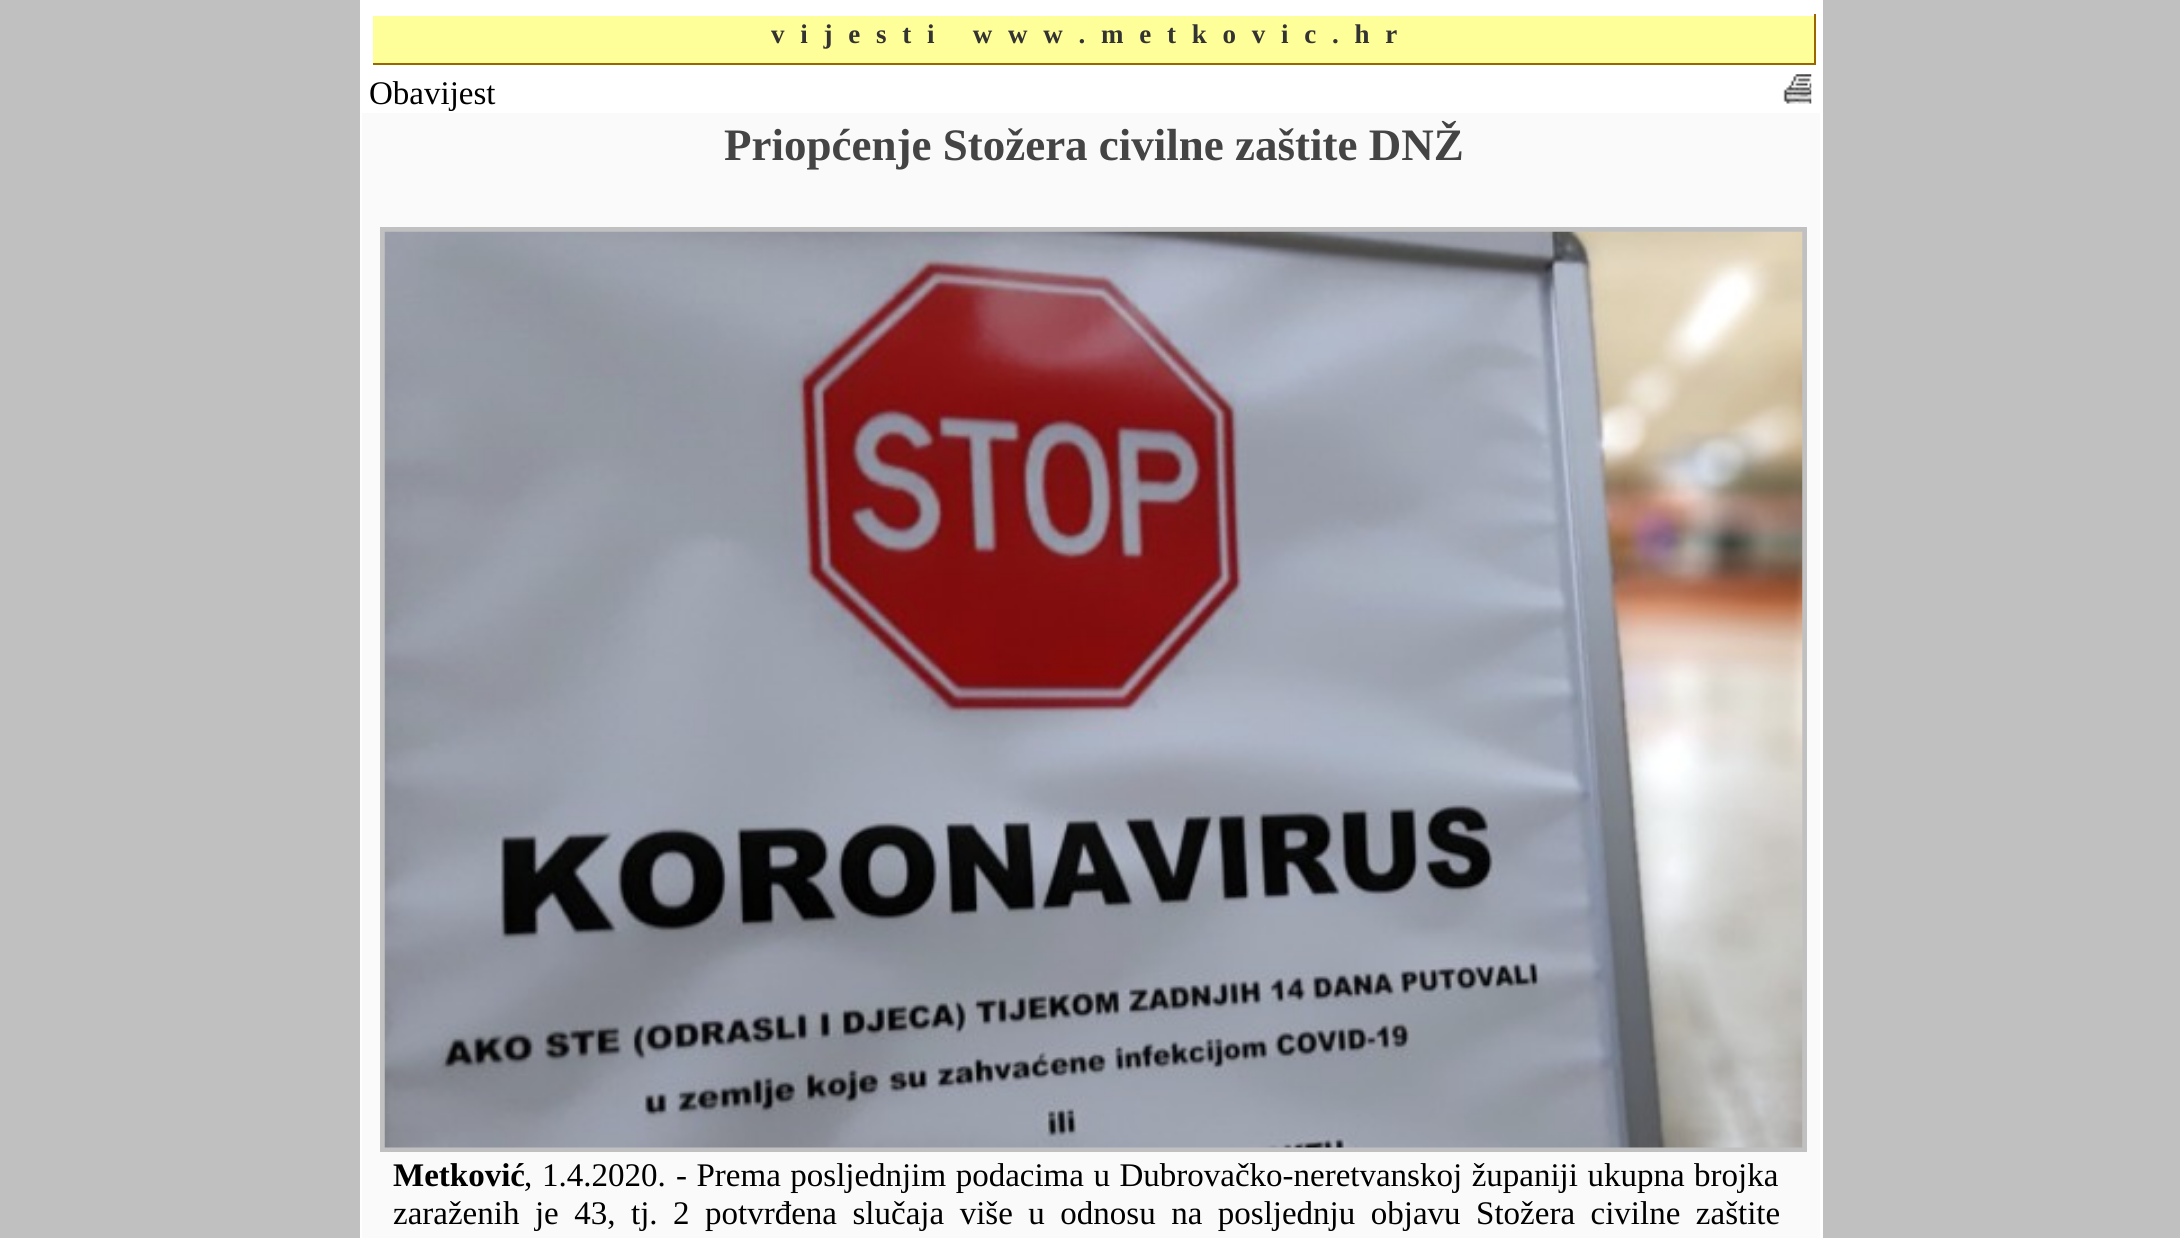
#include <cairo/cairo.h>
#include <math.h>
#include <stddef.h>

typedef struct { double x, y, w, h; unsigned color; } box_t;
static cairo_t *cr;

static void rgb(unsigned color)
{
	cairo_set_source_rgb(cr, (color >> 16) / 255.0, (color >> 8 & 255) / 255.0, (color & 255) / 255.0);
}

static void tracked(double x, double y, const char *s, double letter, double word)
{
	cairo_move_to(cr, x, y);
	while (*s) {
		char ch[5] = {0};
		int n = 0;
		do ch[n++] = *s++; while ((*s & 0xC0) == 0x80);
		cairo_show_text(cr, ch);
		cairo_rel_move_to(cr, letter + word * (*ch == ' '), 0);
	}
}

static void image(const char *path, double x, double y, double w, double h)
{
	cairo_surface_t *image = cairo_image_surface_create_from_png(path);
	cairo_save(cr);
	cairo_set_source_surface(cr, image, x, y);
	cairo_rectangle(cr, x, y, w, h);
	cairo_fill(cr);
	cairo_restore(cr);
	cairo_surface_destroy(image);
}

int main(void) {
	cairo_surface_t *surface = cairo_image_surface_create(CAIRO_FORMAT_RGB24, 2180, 1238);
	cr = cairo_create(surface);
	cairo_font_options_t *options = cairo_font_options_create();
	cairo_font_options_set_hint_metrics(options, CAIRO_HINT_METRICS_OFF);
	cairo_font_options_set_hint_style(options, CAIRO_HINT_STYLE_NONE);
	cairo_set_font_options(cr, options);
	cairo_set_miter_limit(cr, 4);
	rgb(0xc0c0c0);
	cairo_paint(cr);
	{
		static const box_t items[] = {
			{360, 0, 1463, 1238, 0xffffff},
			{373, 16, 1441, 47, 0xffff99},
			{1814, 14, 2, 51, 0x996600},
			{371, 63, 1445, 2, 0x996600},
			{371, 63, 2, 2, 0xffffff},
		};
		for (size_t i = 0; i < sizeof items / sizeof *items; i++) {
			rgb(items[i].color);
			cairo_rectangle(cr, items[i].x, items[i].y, items[i].w, items[i].h);
			cairo_fill(cr);
		}
	}
	image("img/1.png", 1783, 74, 29, 30);
	rgb(0xfafafa);
	cairo_rectangle(cr, 362, 113, 1458, 1125);
	cairo_fill(cr);
	cairo_rectangle(cr, 382.5, 229.5, 1422, 920);
	rgb(0xc0c0c0);
	cairo_set_line_width(cr, 5);
	cairo_stroke(cr);
	image("img/2.png", 384, 231, 1419, 917);
	cairo_select_font_face(cr, "Liberation Serif", CAIRO_FONT_SLANT_NORMAL, CAIRO_FONT_WEIGHT_BOLD);
	cairo_set_font_size(cr, 27);
	rgb(0x333333);
	tracked(771, 43, "vijesti www.metkovic.hr", 15.75, 0);
	cairo_select_font_face(cr, "Liberation Serif", CAIRO_FONT_SLANT_NORMAL, CAIRO_FONT_WEIGHT_NORMAL);
	cairo_set_font_size(cr, 33);
	rgb(0x000000);
	cairo_move_to(cr, 369, 104);
	cairo_show_text(cr, "Obavijest");
	cairo_select_font_face(cr, "Liberation Serif", CAIRO_FONT_SLANT_NORMAL, CAIRO_FONT_WEIGHT_BOLD);
	cairo_set_font_size(cr, 45);
	rgb(0x444444);
	cairo_move_to(cr, 724, 160);
	cairo_show_text(cr, "Priopćenje Stožera civilne zaštite DNŽ");
	cairo_set_font_size(cr, 33);
	rgb(0x000000);
	cairo_move_to(cr, 393, 1186);
	cairo_show_text(cr, "Metković");
	cairo_select_font_face(cr, "Liberation Serif", CAIRO_FONT_SLANT_NORMAL, CAIRO_FONT_WEIGHT_NORMAL);
	cairo_move_to(cr, 524, 1186);
	cairo_show_text(cr, ",");
	cairo_move_to(cr, 542, 1186);
	cairo_show_text(cr, "1.4.2020.");
	tracked(676, 1186, "- Prema posljednjim podacima u Dubrovačko-neretvanskoj županiji ukupna brojka", 0, 1.25);
	tracked(393, 1224, "zaraženih je 43, tj. 2 potvrđena slučaja više u odnosu na posljednju objavu Stožera civilne zaštite", 0, 7.25);
	cairo_surface_write_to_png(surface, "page.png");
	cairo_font_options_destroy(options);
	cairo_destroy(cr);
	cairo_surface_destroy(surface);
	return 0;
}
